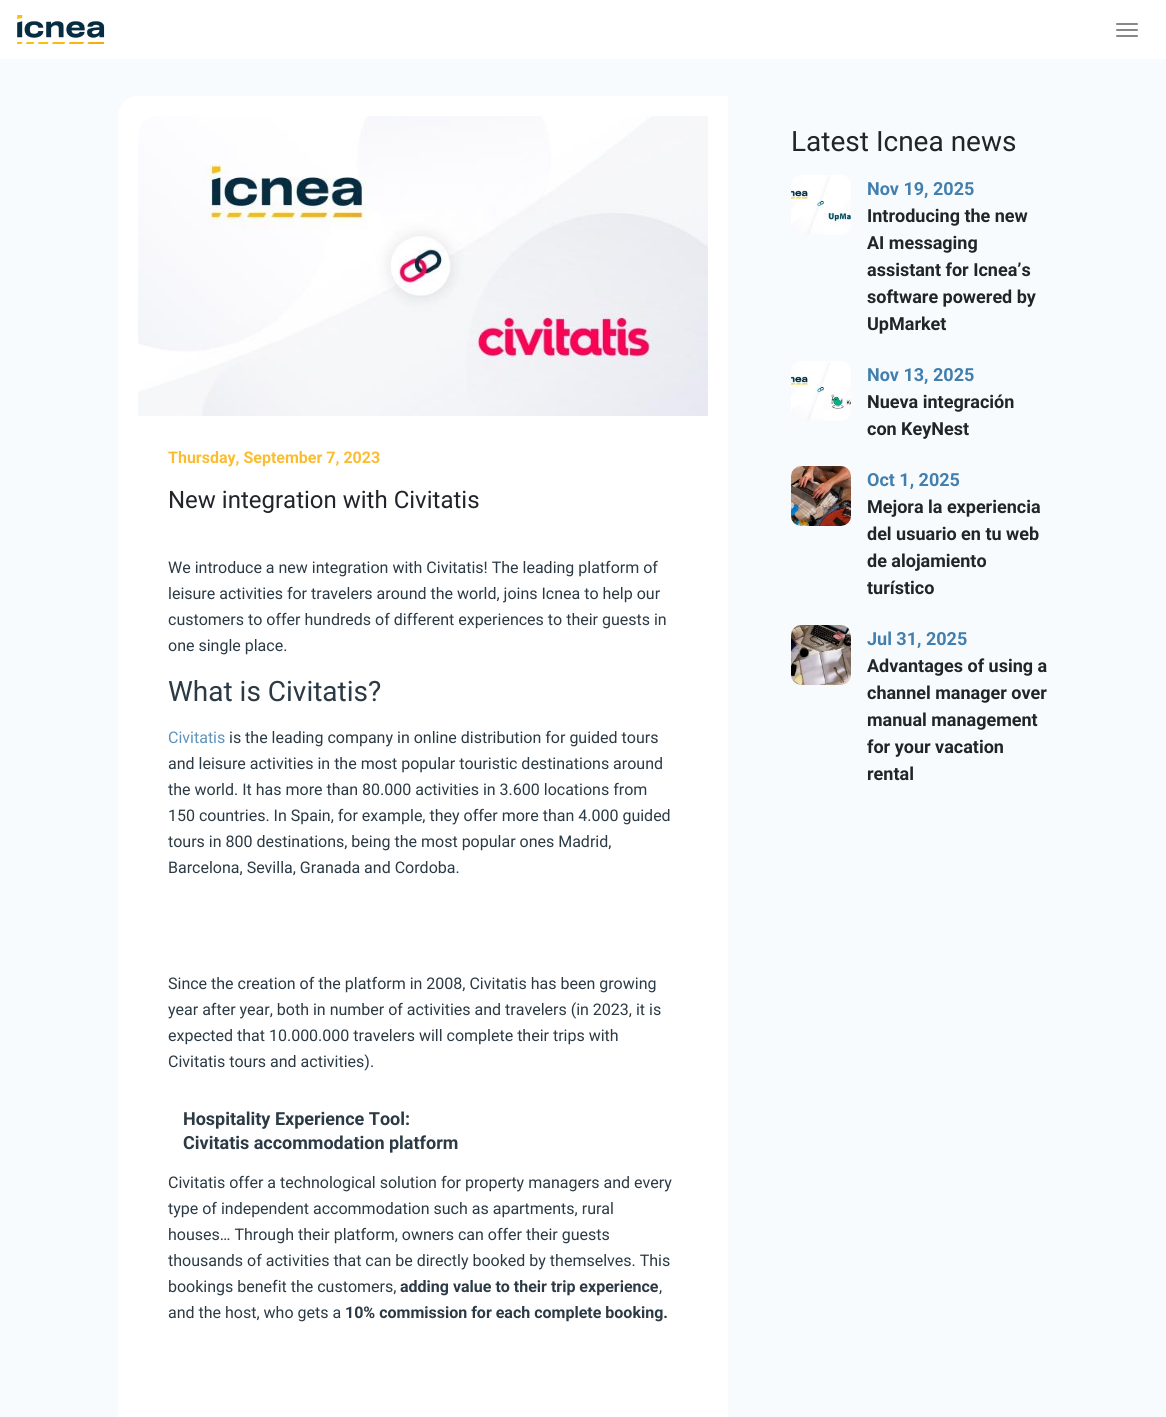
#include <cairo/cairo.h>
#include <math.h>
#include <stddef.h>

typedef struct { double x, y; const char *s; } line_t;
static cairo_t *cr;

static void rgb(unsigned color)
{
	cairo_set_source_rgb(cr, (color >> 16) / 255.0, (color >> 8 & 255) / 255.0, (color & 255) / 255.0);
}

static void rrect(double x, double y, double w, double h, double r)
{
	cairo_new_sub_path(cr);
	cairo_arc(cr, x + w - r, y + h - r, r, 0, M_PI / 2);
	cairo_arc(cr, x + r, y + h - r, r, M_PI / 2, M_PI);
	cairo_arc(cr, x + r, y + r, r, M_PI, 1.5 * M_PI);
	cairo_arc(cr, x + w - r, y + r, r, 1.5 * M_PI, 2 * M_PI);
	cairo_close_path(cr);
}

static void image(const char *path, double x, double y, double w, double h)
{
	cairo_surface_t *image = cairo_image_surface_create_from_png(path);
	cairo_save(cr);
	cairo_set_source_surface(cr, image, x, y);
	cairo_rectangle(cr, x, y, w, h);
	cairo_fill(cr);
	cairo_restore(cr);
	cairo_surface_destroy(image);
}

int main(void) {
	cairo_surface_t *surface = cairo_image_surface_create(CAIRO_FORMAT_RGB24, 1166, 1417);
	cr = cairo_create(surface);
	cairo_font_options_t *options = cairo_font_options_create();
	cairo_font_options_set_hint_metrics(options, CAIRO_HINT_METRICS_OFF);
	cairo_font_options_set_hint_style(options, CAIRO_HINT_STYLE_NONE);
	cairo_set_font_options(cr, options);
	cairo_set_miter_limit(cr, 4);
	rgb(0xf8fbfd);
	cairo_paint(cr);
	rgb(0xffffff);
	cairo_rectangle(cr, 0, 0, 1166, 59);
	cairo_fill(cr);
	image("img/1.png", 17, 15, 88, 29);
	rgb(0x888888);
	rrect(1116, 23, 22, 2, 1);
	cairo_fill(cr);
	rrect(1116, 29, 22, 2, 1);
	cairo_fill(cr);
	rrect(1116, 35, 22, 2, 1);
	cairo_fill(cr);
	rgb(0xffffff);
	cairo_new_path(cr);
	cairo_move_to(cr, 138, 96);
	cairo_line_to(cr, 728, 96);
	cairo_line_to(cr, 728, 1417);
	cairo_curve_to(cr, 728, 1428, 719, 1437, 708, 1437);
	cairo_line_to(cr, 118, 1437);
	cairo_line_to(cr, 118, 116);
	cairo_curve_to(cr, 118, 105, 127, 96, 138, 96);
	cairo_close_path(cr);
	cairo_fill(cr);
	image("img/2.png", 138, 116, 570, 300);
	image("img/3.png", 791, 175, 60, 60);
	image("img/4.png", 791, 361, 60, 60);
	image("img/5.png", 791, 466, 60, 60);
	image("img/6.png", 791, 625, 60, 60);
	cairo_select_font_face(cr, "Roboto", CAIRO_FONT_SLANT_NORMAL, CAIRO_FONT_WEIGHT_BOLD);
	cairo_set_font_size(cr, 16);
	rgb(0xfbbd2f);
	cairo_move_to(cr, 168, 463);
	cairo_show_text(cr, "Thursday, September 7, 2023");
	cairo_select_font_face(cr, "Roboto", CAIRO_FONT_SLANT_NORMAL, CAIRO_FONT_WEIGHT_NORMAL);
	cairo_set_font_size(cr, 24);
	rgb(0x212529);
	cairo_move_to(cr, 168, 508);
	cairo_show_text(cr, "New integration with Civitatis");
	cairo_set_font_size(cr, 16);
	rgb(0x2b3a44);
	{
		static const line_t items[] = {
			{168, 573, "We introduce a new integration with Civitatis! The leading platform of"},
			{168, 599, "leisure activities for travelers around the world, joins Icnea to help our"},
			{168, 625, "customers to offer hundreds of different experiences to their guests in"},
			{168, 651, "one single place."},
		};
		for (size_t i = 0; i < sizeof items / sizeof *items; i++) {
			cairo_move_to(cr, items[i].x, items[i].y);
			cairo_show_text(cr, items[i].s);
		}
	}
	cairo_set_font_size(cr, 28);
	cairo_move_to(cr, 168, 701);
	cairo_show_text(cr, "What is Civitatis?");
	cairo_set_font_size(cr, 16);
	rgb(0x5e92ba);
	cairo_move_to(cr, 168, 743);
	cairo_show_text(cr, "Civitatis");
	rgb(0x2b3a44);
	{
		static const line_t items[] = {
			{229, 743, "is the leading company in online distribution for guided tours"},
			{168, 769, "and leisure activities in the most popular touristic destinations around"},
			{168, 795, "the world. It has more than 80.000 activities in 3.600 locations from"},
			{168, 821, "150 countries. In Spain, for example, they offer more than 4.000 guided"},
			{168, 847, "tours in 800 destinations, being the most popular ones Madrid,"},
			{168, 873, "Barcelona, Sevilla, Granada and Cordoba."},
			{168, 989, "Since the creation of the platform in 2008, Civitatis has been growing"},
			{168, 1015, "year after year, both in number of activities and travelers (in 2023, it is"},
			{168, 1041, "expected that 10.000.000 travelers will complete their trips with"},
			{168, 1067, "Civitatis tours and activities)."},
		};
		for (size_t i = 0; i < sizeof items / sizeof *items; i++) {
			cairo_move_to(cr, items[i].x, items[i].y);
			cairo_show_text(cr, items[i].s);
		}
	}
	cairo_select_font_face(cr, "Roboto", CAIRO_FONT_SLANT_NORMAL, CAIRO_FONT_WEIGHT_BOLD);
	cairo_set_font_size(cr, 18);
	cairo_move_to(cr, 183, 1125);
	cairo_show_text(cr, "Hospitality Experience Tool:");
	cairo_move_to(cr, 183, 1149);
	cairo_show_text(cr, "Civitatis accommodation platform");
	cairo_select_font_face(cr, "Roboto", CAIRO_FONT_SLANT_NORMAL, CAIRO_FONT_WEIGHT_NORMAL);
	cairo_set_font_size(cr, 16);
	{
		static const line_t items[] = {
			{168, 1188, "Civitatis offer a technological solution for property managers and every"},
			{168, 1214, "type of independent accommodation such as apartments, rural"},
			{168, 1240, "houses… Through their platform, owners can offer their guests"},
			{168, 1266, "thousands of activities that can be directly booked by themselves. This"},
			{168, 1292, "bookings benefit the customers,"},
		};
		for (size_t i = 0; i < sizeof items / sizeof *items; i++) {
			cairo_move_to(cr, items[i].x, items[i].y);
			cairo_show_text(cr, items[i].s);
		}
	}
	cairo_select_font_face(cr, "Roboto", CAIRO_FONT_SLANT_NORMAL, CAIRO_FONT_WEIGHT_BOLD);
	cairo_move_to(cr, 400, 1292);
	cairo_show_text(cr, "adding value to their trip experience");
	cairo_select_font_face(cr, "Roboto", CAIRO_FONT_SLANT_NORMAL, CAIRO_FONT_WEIGHT_NORMAL);
	cairo_move_to(cr, 659, 1292);
	cairo_show_text(cr, ",");
	cairo_move_to(cr, 168, 1318);
	cairo_show_text(cr, "and the host, who gets a");
	cairo_select_font_face(cr, "Roboto", CAIRO_FONT_SLANT_NORMAL, CAIRO_FONT_WEIGHT_BOLD);
	cairo_move_to(cr, 345, 1318);
	cairo_show_text(cr, "10% commission for each complete booking.");
	cairo_select_font_face(cr, "Roboto", CAIRO_FONT_SLANT_NORMAL, CAIRO_FONT_WEIGHT_NORMAL);
	cairo_set_font_size(cr, 28);
	rgb(0x212529);
	cairo_move_to(cr, 791, 151);
	cairo_show_text(cr, "Latest Icnea news");
	cairo_select_font_face(cr, "Roboto", CAIRO_FONT_SLANT_NORMAL, CAIRO_FONT_WEIGHT_BOLD);
	cairo_set_font_size(cr, 18);
	rgb(0x427fae);
	cairo_move_to(cr, 867, 195);
	cairo_show_text(cr, "Nov 19, 2025");
	rgb(0x212529);
	{
		static const line_t items[] = {
			{867, 222, "Introducing the new"},
			{867, 249, "AI messaging"},
			{867, 276, "assistant for Icnea’s"},
			{867, 303, "software powered by"},
			{867, 330, "UpMarket"},
		};
		for (size_t i = 0; i < sizeof items / sizeof *items; i++) {
			cairo_move_to(cr, items[i].x, items[i].y);
			cairo_show_text(cr, items[i].s);
		}
	}
	rgb(0x427fae);
	cairo_move_to(cr, 867, 381);
	cairo_show_text(cr, "Nov 13, 2025");
	rgb(0x212529);
	cairo_move_to(cr, 867, 408);
	cairo_show_text(cr, "Nueva integración");
	cairo_move_to(cr, 867, 435);
	cairo_show_text(cr, "con KeyNest");
	rgb(0x427fae);
	cairo_move_to(cr, 867, 486);
	cairo_show_text(cr, "Oct 1, 2025");
	rgb(0x212529);
	{
		static const line_t items[] = {
			{867, 513, "Mejora la experiencia"},
			{867, 540, "del usuario en tu web"},
			{867, 567, "de alojamiento"},
			{867, 594, "turístico"},
		};
		for (size_t i = 0; i < sizeof items / sizeof *items; i++) {
			cairo_move_to(cr, items[i].x, items[i].y);
			cairo_show_text(cr, items[i].s);
		}
	}
	rgb(0x427fae);
	cairo_move_to(cr, 867, 645);
	cairo_show_text(cr, "Jul 31, 2025");
	rgb(0x212529);
	{
		static const line_t items[] = {
			{867, 672, "Advantages of using a"},
			{867, 699, "channel manager over"},
			{867, 726, "manual management"},
			{867, 753, "for your vacation"},
			{867, 780, "rental"},
		};
		for (size_t i = 0; i < sizeof items / sizeof *items; i++) {
			cairo_move_to(cr, items[i].x, items[i].y);
			cairo_show_text(cr, items[i].s);
		}
	}
	cairo_surface_write_to_png(surface, "page.png");
	cairo_font_options_destroy(options);
	cairo_destroy(cr);
	cairo_surface_destroy(surface);
	return 0;
}
